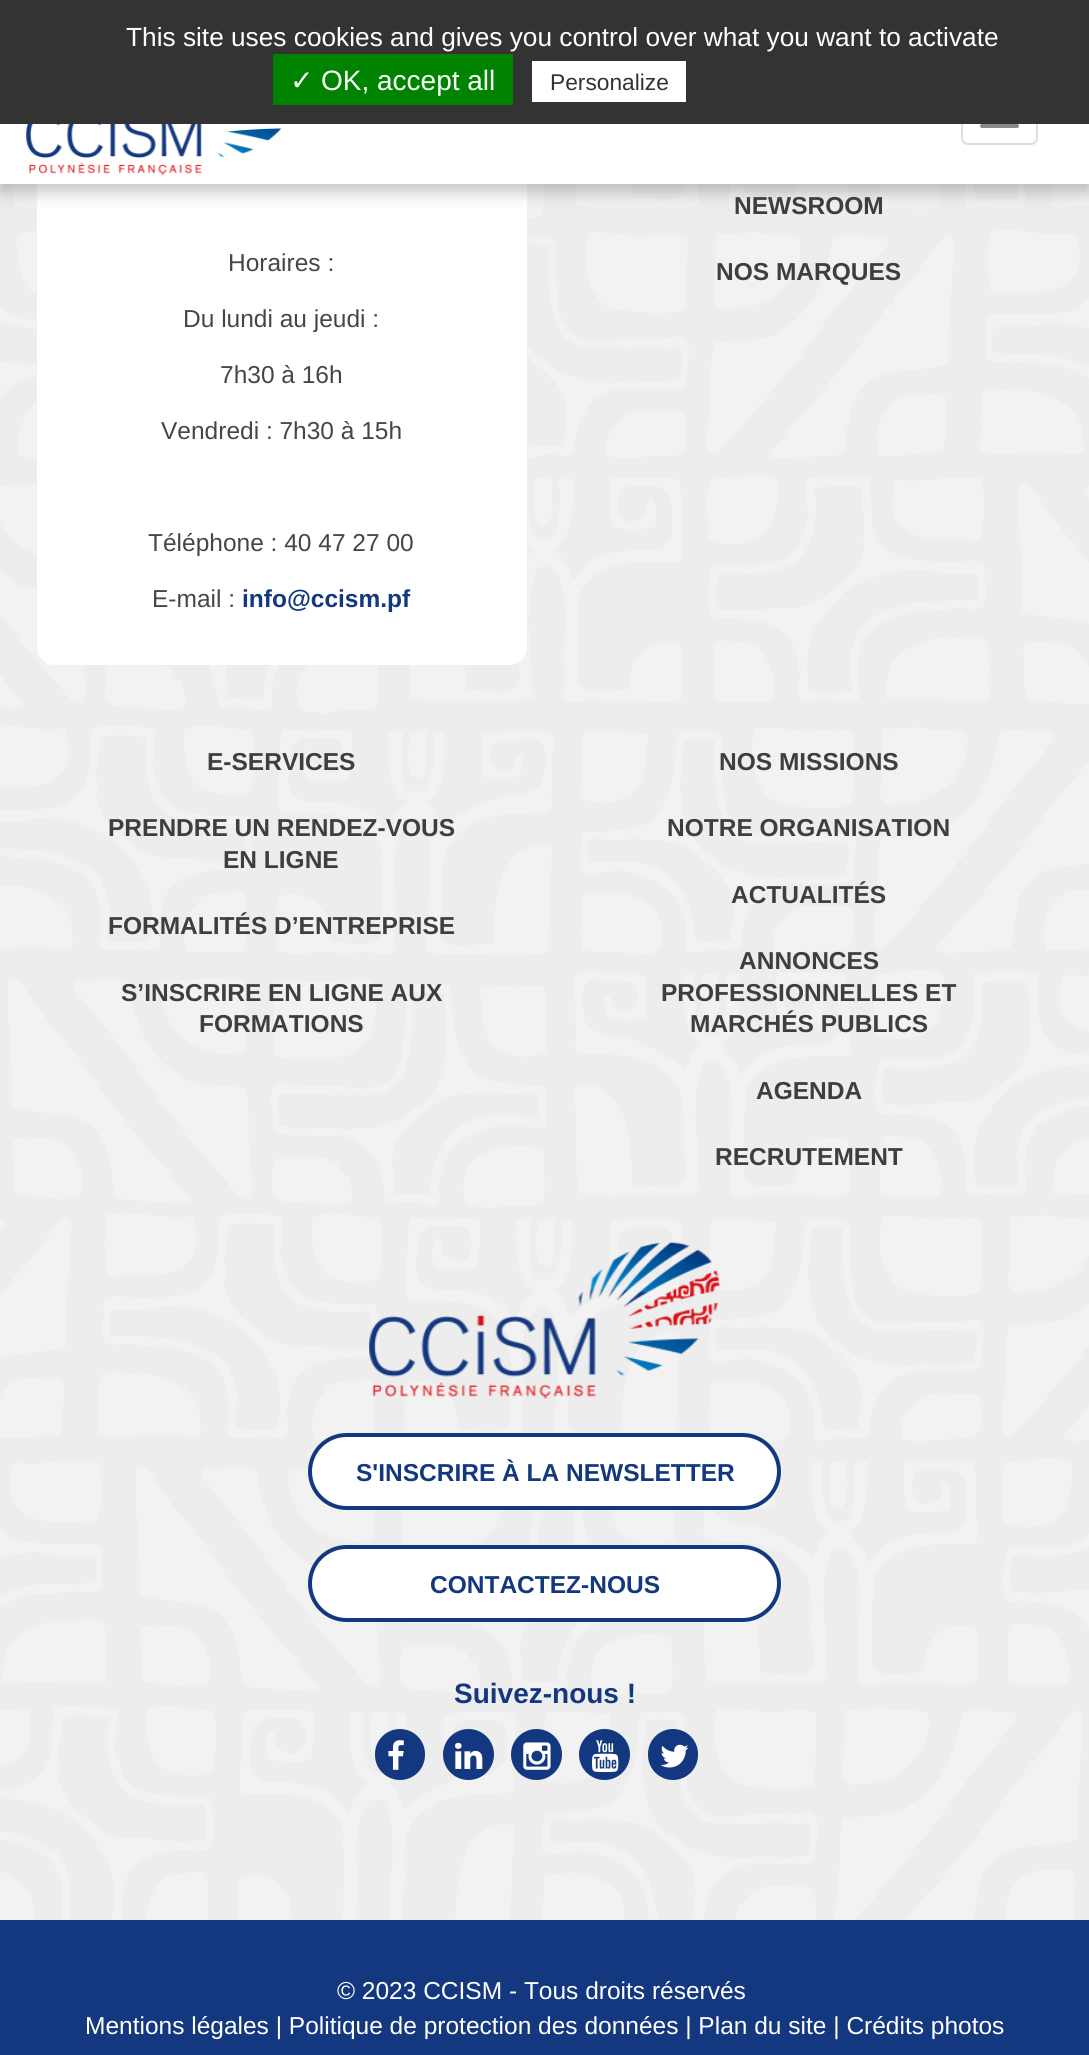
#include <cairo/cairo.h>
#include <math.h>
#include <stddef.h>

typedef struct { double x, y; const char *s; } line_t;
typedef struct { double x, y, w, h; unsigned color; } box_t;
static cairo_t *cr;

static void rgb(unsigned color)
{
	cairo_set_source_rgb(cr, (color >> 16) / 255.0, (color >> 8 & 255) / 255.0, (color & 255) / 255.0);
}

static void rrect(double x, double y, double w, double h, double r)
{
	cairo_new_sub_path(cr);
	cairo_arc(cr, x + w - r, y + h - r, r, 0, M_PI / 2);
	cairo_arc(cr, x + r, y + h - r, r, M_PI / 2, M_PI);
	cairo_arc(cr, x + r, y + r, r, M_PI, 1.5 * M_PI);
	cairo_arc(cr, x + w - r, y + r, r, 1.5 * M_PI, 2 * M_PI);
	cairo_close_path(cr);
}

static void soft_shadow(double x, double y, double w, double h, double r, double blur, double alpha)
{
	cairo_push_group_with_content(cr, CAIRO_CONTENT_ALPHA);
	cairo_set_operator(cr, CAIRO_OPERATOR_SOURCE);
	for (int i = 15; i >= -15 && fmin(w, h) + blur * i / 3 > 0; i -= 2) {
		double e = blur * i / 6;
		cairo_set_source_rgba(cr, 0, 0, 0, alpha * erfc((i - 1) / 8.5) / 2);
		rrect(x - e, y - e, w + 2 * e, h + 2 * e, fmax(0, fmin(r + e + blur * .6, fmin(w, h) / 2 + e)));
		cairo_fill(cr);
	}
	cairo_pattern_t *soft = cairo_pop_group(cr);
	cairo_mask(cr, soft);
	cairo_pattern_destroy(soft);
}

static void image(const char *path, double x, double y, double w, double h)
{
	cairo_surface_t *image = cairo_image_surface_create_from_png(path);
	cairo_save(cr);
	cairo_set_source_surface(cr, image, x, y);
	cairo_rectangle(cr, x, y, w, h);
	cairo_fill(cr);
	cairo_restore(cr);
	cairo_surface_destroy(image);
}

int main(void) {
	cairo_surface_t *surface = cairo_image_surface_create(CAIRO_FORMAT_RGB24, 1089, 2055);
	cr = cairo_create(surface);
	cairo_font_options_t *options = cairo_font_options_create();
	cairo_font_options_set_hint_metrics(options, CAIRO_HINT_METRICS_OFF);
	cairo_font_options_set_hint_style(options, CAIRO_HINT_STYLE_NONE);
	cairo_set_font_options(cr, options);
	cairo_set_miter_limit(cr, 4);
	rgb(0xededed);
	cairo_paint(cr);
	image("img/2.png", 0, 184, 1089, 1736);
	rgb(0xffffff);
	rrect(37, -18, 490, 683, 18);
	cairo_fill(cr);
	rgb(0x000000);
	soft_shadow(0, 53, 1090, 138, 0, 9, 0.25);
	rgb(0xffffff);
	cairo_rectangle(cr, 0, 124, 1089, 60);
	cairo_fill(cr);
	image("img/1.png", 26, 124, 256, 51);
	rrect(962, 87, 75, 57, 6);
	rgb(0xdddddd);
	cairo_stroke(cr);
	rgb(0x888888);
	rrect(980, 124, 39, 4, 2);
	cairo_fill(cr);
	{
		static const box_t items[] = {
			{0, 0, 1089, 124, 0x333333},
			{273, 54, 240, 51, 0x008300},
			{532, 61, 154, 41, 0xffffff},
		};
		for (size_t i = 0; i < sizeof items / sizeof *items; i++) {
			rgb(items[i].color);
			cairo_rectangle(cr, items[i].x, items[i].y, items[i].w, items[i].h);
			cairo_fill(cr);
		}
	}
	image("img/3.png", 369, 1242, 352, 157);
	rrect(310, 1435, 469, 73, 36.5);
	cairo_fill_preserve(cr);
	rgb(0x14387f);
	cairo_set_line_width(cr, 4);
	cairo_stroke(cr);
	rgb(0xffffff);
	rrect(310, 1547, 469, 73, 36.5);
	cairo_fill_preserve(cr);
	rgb(0x14387f);
	cairo_stroke(cr);
	rrect(375, 1729, 50, 51, 25);
	cairo_fill(cr);
	image("img/4.png", 388, 1740, 16, 30);
	cairo_arc(cr, 468.5, 1754.5, 25.5, 0, 2 * M_PI);
	cairo_fill(cr);
	image("img/5.png", 455, 1742, 28, 27);
	cairo_arc(cr, 536.5, 1754.5, 25.5, 0, 2 * M_PI);
	cairo_fill(cr);
	image("img/6.png", 523, 1742, 28, 28);
	cairo_arc(cr, 604.5, 1754.5, 25.5, 0, 2 * M_PI);
	cairo_fill(cr);
	image("img/7.png", 592, 1740, 27, 33);
	rrect(648, 1729, 50, 51, 25);
	cairo_fill(cr);
	image("img/8.png", 660, 1744, 29, 24);
	cairo_rectangle(cr, 0, 1920, 1089, 135);
	cairo_fill(cr);
	cairo_select_font_face(cr, "Liberation Sans", CAIRO_FONT_SLANT_NORMAL, CAIRO_FONT_WEIGHT_NORMAL);
	cairo_set_font_size(cr, 26.25);
	rgb(0xffffff);
	cairo_move_to(cr, 126, 46);
	cairo_show_text(cr, "This site uses cookies and gives you control over what you want to activate");
	cairo_select_font_face(cr, "DejaVu Sans", CAIRO_FONT_SLANT_NORMAL, CAIRO_FONT_WEIGHT_NORMAL);
	cairo_set_font_size(cr, 28);
	cairo_move_to(cr, 290, 90);
	cairo_show_text(cr, "✓");
	cairo_select_font_face(cr, "Liberation Sans", CAIRO_FONT_SLANT_NORMAL, CAIRO_FONT_WEIGHT_NORMAL);
	cairo_move_to(cr, 321, 90);
	cairo_show_text(cr, "OK, accept all");
	cairo_set_font_size(cr, 22.75);
	rgb(0x333333);
	cairo_move_to(cr, 550, 90);
	cairo_show_text(cr, "Personalize");
	cairo_select_font_face(cr, "Liberation Sans", CAIRO_FONT_SLANT_NORMAL, CAIRO_FONT_WEIGHT_BOLD);
	cairo_set_font_size(cr, 24.5);
	rgb(0x3e3e3e);
	cairo_move_to(cr, 734, 214);
	cairo_show_text(cr, "NEWSROOM");
	cairo_move_to(cr, 716, 280);
	cairo_show_text(cr, "NOS MARQUES");
	cairo_select_font_face(cr, "Liberation Sans", CAIRO_FONT_SLANT_NORMAL, CAIRO_FONT_WEIGHT_NORMAL);
	rgb(0x464646);
	{
		static const line_t items[] = {
			{228, 271, "Horaires :"},
			{183, 327, "Du lundi au jeudi :"},
			{220, 383, "7h30 à 16h"},
			{161, 439, "Vendredi : 7h30 à 15h"},
			{148, 551, "Téléphone : 40 47 27 00"},
			{152, 607, "E-mail :"},
		};
		for (size_t i = 0; i < sizeof items / sizeof *items; i++) {
			cairo_move_to(cr, items[i].x, items[i].y);
			cairo_show_text(cr, items[i].s);
		}
	}
	cairo_select_font_face(cr, "Liberation Sans", CAIRO_FONT_SLANT_NORMAL, CAIRO_FONT_WEIGHT_BOLD);
	rgb(0x14387f);
	cairo_move_to(cr, 242, 607);
	cairo_show_text(cr, "info@ccism.pf");
	rgb(0x3e3e3e);
	{
		static const line_t items[] = {
			{207, 770, "E-SERVICES"},
			{108, 836, "PRENDRE UN RENDEZ-VOUS"},
			{223, 868, "EN LIGNE"},
			{108, 934, "FORMALITÉS D’ENTREPRISE"},
			{121, 1001, "S’INSCRIRE EN LIGNE AUX"},
			{199, 1032, "FORMATIONS"},
			{719, 770, "NOS MISSIONS"},
			{667, 836, "NOTRE ORGANISATION"},
			{731, 903, "ACTUALITÉS"},
			{739, 969, "ANNONCES"},
			{661, 1001, "PROFESSIONNELLES ET"},
			{690, 1032, "MARCHÉS PUBLICS"},
			{756, 1099, "AGENDA"},
			{715, 1165, "RECRUTEMENT"},
		};
		for (size_t i = 0; i < sizeof items / sizeof *items; i++) {
			cairo_move_to(cr, items[i].x, items[i].y);
			cairo_show_text(cr, items[i].s);
		}
	}
	rgb(0x14387f);
	cairo_move_to(cr, 356, 1481);
	cairo_show_text(cr, "S'INSCRIRE À LA NEWSLETTER");
	cairo_move_to(cr, 430, 1593);
	cairo_show_text(cr, "CONTACTEZ-NOUS");
	cairo_set_font_size(cr, 28);
	cairo_move_to(cr, 454, 1703);
	cairo_show_text(cr, "Suivez-nous !");
	cairo_select_font_face(cr, "Liberation Sans", CAIRO_FONT_SLANT_NORMAL, CAIRO_FONT_WEIGHT_NORMAL);
	cairo_set_font_size(cr, 24.5);
	rgb(0xffffff);
	cairo_move_to(cr, 337, 1999);
	cairo_show_text(cr, "© 2023 CCISM - Tous droits réservés");
	cairo_move_to(cr, 85, 2034);
	cairo_show_text(cr, "Mentions légales | Politique de protection des données | Plan du site | Crédits photos");
	cairo_surface_write_to_png(surface, "page.png");
	cairo_font_options_destroy(options);
	cairo_destroy(cr);
	cairo_surface_destroy(surface);
	return 0;
}
